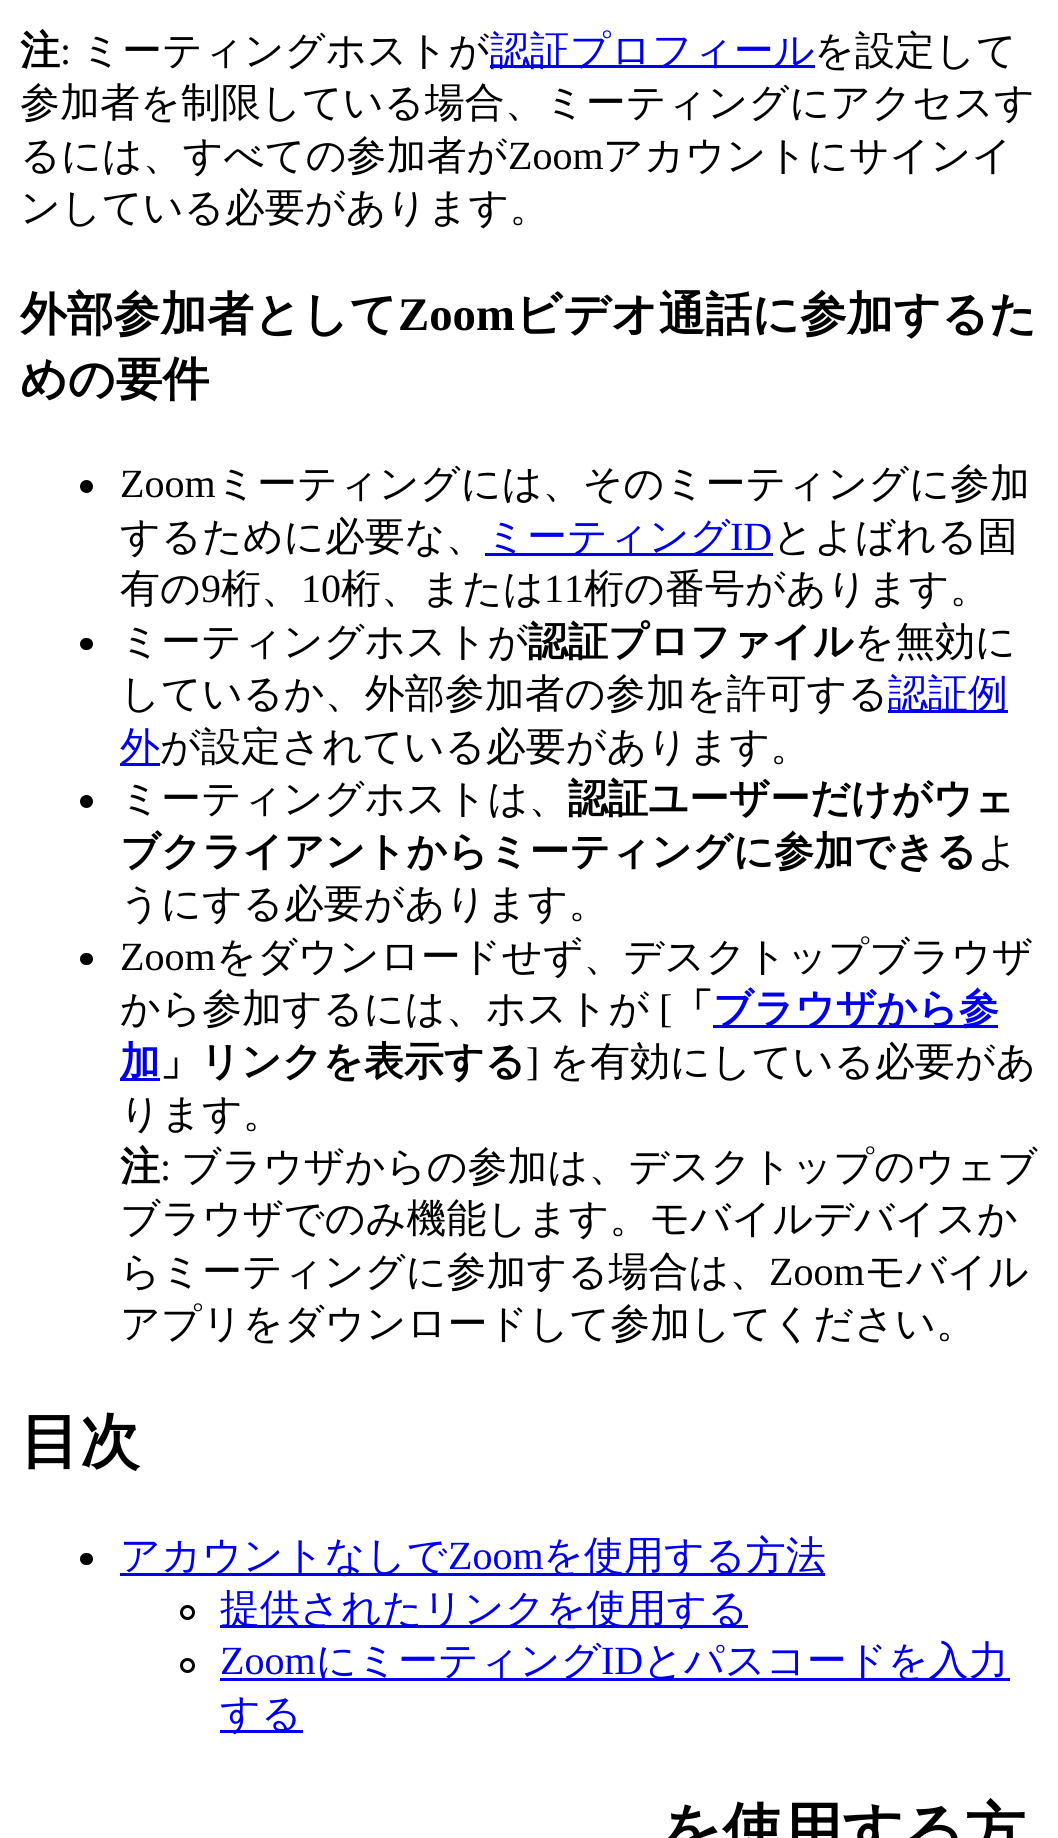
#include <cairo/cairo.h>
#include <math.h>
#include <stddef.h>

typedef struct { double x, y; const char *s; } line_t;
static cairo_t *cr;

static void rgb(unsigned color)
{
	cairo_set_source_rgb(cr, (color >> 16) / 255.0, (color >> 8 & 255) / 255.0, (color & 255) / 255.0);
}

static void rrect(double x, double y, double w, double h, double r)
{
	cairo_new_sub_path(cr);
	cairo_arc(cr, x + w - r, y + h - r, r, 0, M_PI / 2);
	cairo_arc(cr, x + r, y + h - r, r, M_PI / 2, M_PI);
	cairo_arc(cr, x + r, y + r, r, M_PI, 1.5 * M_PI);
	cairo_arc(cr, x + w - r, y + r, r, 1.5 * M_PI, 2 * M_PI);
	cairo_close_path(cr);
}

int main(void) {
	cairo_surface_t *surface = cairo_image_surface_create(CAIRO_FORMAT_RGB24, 1058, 1838);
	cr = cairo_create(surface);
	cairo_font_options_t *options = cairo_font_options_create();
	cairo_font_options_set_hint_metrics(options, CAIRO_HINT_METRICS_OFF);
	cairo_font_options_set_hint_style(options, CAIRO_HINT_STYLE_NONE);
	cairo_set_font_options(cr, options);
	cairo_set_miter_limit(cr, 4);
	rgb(0xffffff);
	cairo_paint(cr);
	rgb(0x0000ee);
	cairo_rectangle(cr, 490, 65, 325, 3);
	cairo_fill(cr);
	rgb(0x000000);
	cairo_arc(cr, 86.5, 486.5, 6.5, 0, 2 * M_PI);
	cairo_fill(cr);
	rgb(0x0000ee);
	cairo_rectangle(cr, 485, 553, 288, 3);
	cairo_fill(cr);
	rgb(0x000000);
	rrect(80, 638, 13, 12, 6);
	cairo_fill(cr);
	rgb(0x0000ee);
	cairo_rectangle(cr, 888, 710, 120, 3);
	cairo_fill(cr);
	cairo_rectangle(cr, 120, 763, 40, 3);
	cairo_fill(cr);
	rgb(0x000000);
	cairo_arc(cr, 86.5, 801.5, 6.5, 0, 2 * M_PI);
	cairo_fill(cr);
	rrect(80, 953, 13, 12, 6);
	cairo_fill(cr);
	rgb(0x0000ee);
	cairo_rectangle(cr, 713, 1025, 285, 3);
	cairo_fill(cr);
	cairo_rectangle(cr, 120, 1078, 40, 3);
	cairo_fill(cr);
	rgb(0x000000);
	rrect(80, 1553, 13, 12, 6);
	cairo_fill(cr);
	rgb(0x0000ee);
	cairo_rectangle(cr, 120, 1573, 705, 3);
	cairo_fill(cr);
	cairo_arc(cr, 187.5, 1612.5, 6, 0, 2 * M_PI);
	rgb(0x000000);
	cairo_set_line_width(cr, 3);
	cairo_stroke(cr);
	rgb(0x0000ee);
	cairo_rectangle(cr, 220, 1625, 528, 3);
	cairo_fill(cr);
	cairo_arc(cr, 187.5, 1665.5, 6, 0, 2 * M_PI);
	rgb(0x000000);
	cairo_stroke(cr);
	rgb(0x0000ee);
	cairo_rectangle(cr, 220, 1678, 790, 3);
	cairo_fill(cr);
	cairo_rectangle(cr, 220, 1730, 83, 3);
	cairo_fill(cr);
	cairo_select_font_face(cr, "WenQuanYi Zen Hei", CAIRO_FONT_SLANT_NORMAL, CAIRO_FONT_WEIGHT_BOLD);
	cairo_set_font_size(cr, 40);
	rgb(0x000000);
	cairo_move_to(cr, 20, 64);
	cairo_show_text(cr, "注");
	cairo_select_font_face(cr, "Liberation Serif", CAIRO_FONT_SLANT_NORMAL, CAIRO_FONT_WEIGHT_NORMAL);
	cairo_move_to(cr, 60, 64);
	cairo_show_text(cr, ":");
	cairo_select_font_face(cr, "WenQuanYi Zen Hei Medium", CAIRO_FONT_SLANT_NORMAL, CAIRO_FONT_WEIGHT_NORMAL);
	cairo_move_to(cr, 81, 64);
	cairo_show_text(cr, "ミーティングホストが");
	rgb(0x0000ee);
	cairo_move_to(cr, 490, 64);
	cairo_show_text(cr, "認証プロフィール");
	rgb(0x000000);
	{
		static const line_t items[] = {
			{814, 64, "を設定して"},
			{20, 116, "参加者を制限している場合、ミーティングにアクセスす"},
			{20, 169, "るには、すべての参加者が"},
		};
		for (size_t i = 0; i < sizeof items / sizeof *items; i++) {
			cairo_move_to(cr, items[i].x, items[i].y);
			cairo_show_text(cr, items[i].s);
		}
	}
	cairo_select_font_face(cr, "Liberation Serif", CAIRO_FONT_SLANT_NORMAL, CAIRO_FONT_WEIGHT_NORMAL);
	cairo_move_to(cr, 508, 169);
	cairo_show_text(cr, "Zoom");
	cairo_select_font_face(cr, "WenQuanYi Zen Hei Medium", CAIRO_FONT_SLANT_NORMAL, CAIRO_FONT_WEIGHT_NORMAL);
	cairo_move_to(cr, 603, 169);
	cairo_show_text(cr, "アカウントにサインイ");
	cairo_move_to(cr, 20, 221);
	cairo_show_text(cr, "ンしている必要があります。");
	cairo_select_font_face(cr, "WenQuanYi Zen Hei", CAIRO_FONT_SLANT_NORMAL, CAIRO_FONT_WEIGHT_BOLD);
	cairo_set_font_size(cr, 46.75);
	cairo_move_to(cr, 20, 330);
	cairo_show_text(cr, "外部参加者として");
	cairo_select_font_face(cr, "Liberation Serif", CAIRO_FONT_SLANT_NORMAL, CAIRO_FONT_WEIGHT_BOLD);
	cairo_move_to(cr, 398, 330);
	cairo_show_text(cr, "Zoom");
	cairo_select_font_face(cr, "WenQuanYi Zen Hei", CAIRO_FONT_SLANT_NORMAL, CAIRO_FONT_WEIGHT_BOLD);
	cairo_move_to(cr, 515, 330);
	cairo_show_text(cr, "ビデオ通話に参加するた");
	cairo_move_to(cr, 20, 395);
	cairo_show_text(cr, "めの要件");
	cairo_select_font_face(cr, "Liberation Serif", CAIRO_FONT_SLANT_NORMAL, CAIRO_FONT_WEIGHT_NORMAL);
	cairo_set_font_size(cr, 40);
	cairo_move_to(cr, 120, 497);
	cairo_show_text(cr, "Zoom");
	cairo_select_font_face(cr, "WenQuanYi Zen Hei Medium", CAIRO_FONT_SLANT_NORMAL, CAIRO_FONT_WEIGHT_NORMAL);
	cairo_move_to(cr, 216, 497);
	cairo_show_text(cr, "ミーティングには、そのミーティングに参加");
	cairo_move_to(cr, 120, 550);
	cairo_show_text(cr, "するために必要な、");
	rgb(0x0000ee);
	cairo_move_to(cr, 486, 550);
	cairo_show_text(cr, "ミーティング");
	cairo_select_font_face(cr, "Liberation Serif", CAIRO_FONT_SLANT_NORMAL, CAIRO_FONT_WEIGHT_NORMAL);
	cairo_move_to(cr, 730, 550);
	cairo_show_text(cr, "ID");
	cairo_select_font_face(cr, "WenQuanYi Zen Hei Medium", CAIRO_FONT_SLANT_NORMAL, CAIRO_FONT_WEIGHT_NORMAL);
	rgb(0x000000);
	cairo_move_to(cr, 773, 550);
	cairo_show_text(cr, "とよばれる固");
	cairo_move_to(cr, 120, 602);
	cairo_show_text(cr, "有の");
	cairo_select_font_face(cr, "Liberation Serif", CAIRO_FONT_SLANT_NORMAL, CAIRO_FONT_WEIGHT_NORMAL);
	cairo_move_to(cr, 201, 602);
	cairo_show_text(cr, "9");
	cairo_select_font_face(cr, "WenQuanYi Zen Hei Medium", CAIRO_FONT_SLANT_NORMAL, CAIRO_FONT_WEIGHT_NORMAL);
	cairo_move_to(cr, 221, 602);
	cairo_show_text(cr, "桁、");
	cairo_select_font_face(cr, "Liberation Serif", CAIRO_FONT_SLANT_NORMAL, CAIRO_FONT_WEIGHT_NORMAL);
	cairo_move_to(cr, 301, 602);
	cairo_show_text(cr, "10");
	cairo_select_font_face(cr, "WenQuanYi Zen Hei Medium", CAIRO_FONT_SLANT_NORMAL, CAIRO_FONT_WEIGHT_NORMAL);
	cairo_move_to(cr, 341, 602);
	cairo_show_text(cr, "桁、または");
	cairo_select_font_face(cr, "Liberation Serif", CAIRO_FONT_SLANT_NORMAL, CAIRO_FONT_WEIGHT_NORMAL);
	cairo_move_to(cr, 544, 602);
	cairo_show_text(cr, "11");
	cairo_select_font_face(cr, "WenQuanYi Zen Hei Medium", CAIRO_FONT_SLANT_NORMAL, CAIRO_FONT_WEIGHT_NORMAL);
	cairo_move_to(cr, 584, 602);
	cairo_show_text(cr, "桁の番号があります。");
	cairo_move_to(cr, 120, 655);
	cairo_show_text(cr, "ミーティングホストが");
	cairo_select_font_face(cr, "WenQuanYi Zen Hei", CAIRO_FONT_SLANT_NORMAL, CAIRO_FONT_WEIGHT_BOLD);
	cairo_move_to(cr, 528, 655);
	cairo_show_text(cr, "認証プロファイル");
	cairo_select_font_face(cr, "WenQuanYi Zen Hei Medium", CAIRO_FONT_SLANT_NORMAL, CAIRO_FONT_WEIGHT_NORMAL);
	cairo_move_to(cr, 854, 655);
	cairo_show_text(cr, "を無効に");
	cairo_move_to(cr, 120, 707);
	cairo_show_text(cr, "しているか、外部参加者の参加を許可する");
	rgb(0x0000ee);
	cairo_move_to(cr, 888, 707);
	cairo_show_text(cr, "認証例");
	cairo_move_to(cr, 120, 760);
	cairo_show_text(cr, "外");
	rgb(0x000000);
	cairo_move_to(cr, 160, 760);
	cairo_show_text(cr, "が設定されている必要があります。");
	cairo_move_to(cr, 120, 812);
	cairo_show_text(cr, "ミーティングホストは、");
	cairo_select_font_face(cr, "WenQuanYi Zen Hei", CAIRO_FONT_SLANT_NORMAL, CAIRO_FONT_WEIGHT_BOLD);
	cairo_move_to(cr, 568, 812);
	cairo_show_text(cr, "認証ユーザーだけがウェ");
	cairo_move_to(cr, 120, 865);
	cairo_show_text(cr, "ブクライアントからミーティングに参加できる");
	cairo_select_font_face(cr, "WenQuanYi Zen Hei Medium", CAIRO_FONT_SLANT_NORMAL, CAIRO_FONT_WEIGHT_NORMAL);
	cairo_move_to(cr, 977, 865);
	cairo_show_text(cr, "よ");
	cairo_move_to(cr, 120, 917);
	cairo_show_text(cr, "うにする必要があります。");
	cairo_select_font_face(cr, "Liberation Serif", CAIRO_FONT_SLANT_NORMAL, CAIRO_FONT_WEIGHT_NORMAL);
	cairo_move_to(cr, 120, 970);
	cairo_show_text(cr, "Zoom");
	cairo_select_font_face(cr, "WenQuanYi Zen Hei Medium", CAIRO_FONT_SLANT_NORMAL, CAIRO_FONT_WEIGHT_NORMAL);
	cairo_move_to(cr, 216, 970);
	cairo_show_text(cr, "をダウンロードせず、デスクトップブラウザ");
	cairo_move_to(cr, 120, 1022);
	cairo_show_text(cr, "から参加するには、ホストが");
	cairo_select_font_face(cr, "Liberation Serif", CAIRO_FONT_SLANT_NORMAL, CAIRO_FONT_WEIGHT_NORMAL);
	cairo_move_to(cr, 659, 1022);
	cairo_show_text(cr, "[");
	cairo_select_font_face(cr, "WenQuanYi Zen Hei", CAIRO_FONT_SLANT_NORMAL, CAIRO_FONT_WEIGHT_BOLD);
	cairo_move_to(cr, 673, 1022);
	cairo_show_text(cr, "「");
	rgb(0x0000ee);
	cairo_move_to(cr, 713, 1022);
	cairo_show_text(cr, "ブラウザから参");
	cairo_move_to(cr, 120, 1075);
	cairo_show_text(cr, "加");
	rgb(0x000000);
	cairo_move_to(cr, 160, 1075);
	cairo_show_text(cr, "」リンクを表示する");
	cairo_select_font_face(cr, "Liberation Serif", CAIRO_FONT_SLANT_NORMAL, CAIRO_FONT_WEIGHT_NORMAL);
	cairo_move_to(cr, 526, 1075);
	cairo_show_text(cr, "]");
	cairo_select_font_face(cr, "WenQuanYi Zen Hei Medium", CAIRO_FONT_SLANT_NORMAL, CAIRO_FONT_WEIGHT_NORMAL);
	cairo_move_to(cr, 549, 1075);
	cairo_show_text(cr, "を有効にしている必要があ");
	cairo_move_to(cr, 120, 1127);
	cairo_show_text(cr, "ります。");
	cairo_select_font_face(cr, "WenQuanYi Zen Hei", CAIRO_FONT_SLANT_NORMAL, CAIRO_FONT_WEIGHT_BOLD);
	cairo_move_to(cr, 120, 1180);
	cairo_show_text(cr, "注");
	cairo_select_font_face(cr, "Liberation Serif", CAIRO_FONT_SLANT_NORMAL, CAIRO_FONT_WEIGHT_NORMAL);
	cairo_move_to(cr, 160, 1180);
	cairo_show_text(cr, ":");
	cairo_select_font_face(cr, "WenQuanYi Zen Hei Medium", CAIRO_FONT_SLANT_NORMAL, CAIRO_FONT_WEIGHT_NORMAL);
	{
		static const line_t items[] = {
			{181, 1180, "ブラウザからの参加は、デスクトップのウェブ"},
			{120, 1232, "ブラウザでのみ機能します。モバイルデバイスか"},
			{120, 1285, "らミーティングに参加する場合は、"},
		};
		for (size_t i = 0; i < sizeof items / sizeof *items; i++) {
			cairo_move_to(cr, items[i].x, items[i].y);
			cairo_show_text(cr, items[i].s);
		}
	}
	cairo_select_font_face(cr, "Liberation Serif", CAIRO_FONT_SLANT_NORMAL, CAIRO_FONT_WEIGHT_NORMAL);
	cairo_move_to(cr, 769, 1285);
	cairo_show_text(cr, "Zoom");
	cairo_select_font_face(cr, "WenQuanYi Zen Hei Medium", CAIRO_FONT_SLANT_NORMAL, CAIRO_FONT_WEIGHT_NORMAL);
	cairo_move_to(cr, 865, 1285);
	cairo_show_text(cr, "モバイル");
	cairo_move_to(cr, 120, 1337);
	cairo_show_text(cr, "アプリをダウンロードして参加してください。");
	cairo_select_font_face(cr, "WenQuanYi Zen Hei", CAIRO_FONT_SLANT_NORMAL, CAIRO_FONT_WEIGHT_BOLD);
	cairo_set_font_size(cr, 60);
	cairo_move_to(cr, 20, 1462);
	cairo_show_text(cr, "目次");
	cairo_select_font_face(cr, "WenQuanYi Zen Hei Medium", CAIRO_FONT_SLANT_NORMAL, CAIRO_FONT_WEIGHT_NORMAL);
	cairo_set_font_size(cr, 40);
	rgb(0x0000ee);
	cairo_move_to(cr, 120, 1569);
	cairo_show_text(cr, "アカウントなしで");
	cairo_select_font_face(cr, "Liberation Serif", CAIRO_FONT_SLANT_NORMAL, CAIRO_FONT_WEIGHT_NORMAL);
	cairo_move_to(cr, 448, 1569);
	cairo_show_text(cr, "Zoom");
	cairo_select_font_face(cr, "WenQuanYi Zen Hei Medium", CAIRO_FONT_SLANT_NORMAL, CAIRO_FONT_WEIGHT_NORMAL);
	cairo_move_to(cr, 543, 1569);
	cairo_show_text(cr, "を使用する方法");
	cairo_move_to(cr, 220, 1622);
	cairo_show_text(cr, "提供されたリンクを使用する");
	cairo_select_font_face(cr, "Liberation Serif", CAIRO_FONT_SLANT_NORMAL, CAIRO_FONT_WEIGHT_NORMAL);
	cairo_move_to(cr, 220, 1674);
	cairo_show_text(cr, "Zoom");
	cairo_select_font_face(cr, "WenQuanYi Zen Hei Medium", CAIRO_FONT_SLANT_NORMAL, CAIRO_FONT_WEIGHT_NORMAL);
	cairo_move_to(cr, 316, 1674);
	cairo_show_text(cr, "にミーティング");
	cairo_select_font_face(cr, "Liberation Serif", CAIRO_FONT_SLANT_NORMAL, CAIRO_FONT_WEIGHT_NORMAL);
	cairo_move_to(cr, 601, 1674);
	cairo_show_text(cr, "ID");
	cairo_select_font_face(cr, "WenQuanYi Zen Hei Medium", CAIRO_FONT_SLANT_NORMAL, CAIRO_FONT_WEIGHT_NORMAL);
	cairo_move_to(cr, 643, 1674);
	cairo_show_text(cr, "とパスコードを入力");
	cairo_move_to(cr, 220, 1727);
	cairo_show_text(cr, "する");
	cairo_select_font_face(cr, "WenQuanYi Zen Hei", CAIRO_FONT_SLANT_NORMAL, CAIRO_FONT_WEIGHT_BOLD);
	cairo_set_font_size(cr, 60);
	rgb(0x000000);
	cairo_move_to(cr, 661, 1851);
	cairo_show_text(cr, "を使用する方");
	cairo_surface_write_to_png(surface, "page.png");
	cairo_font_options_destroy(options);
	cairo_destroy(cr);
	cairo_surface_destroy(surface);
	return 0;
}
